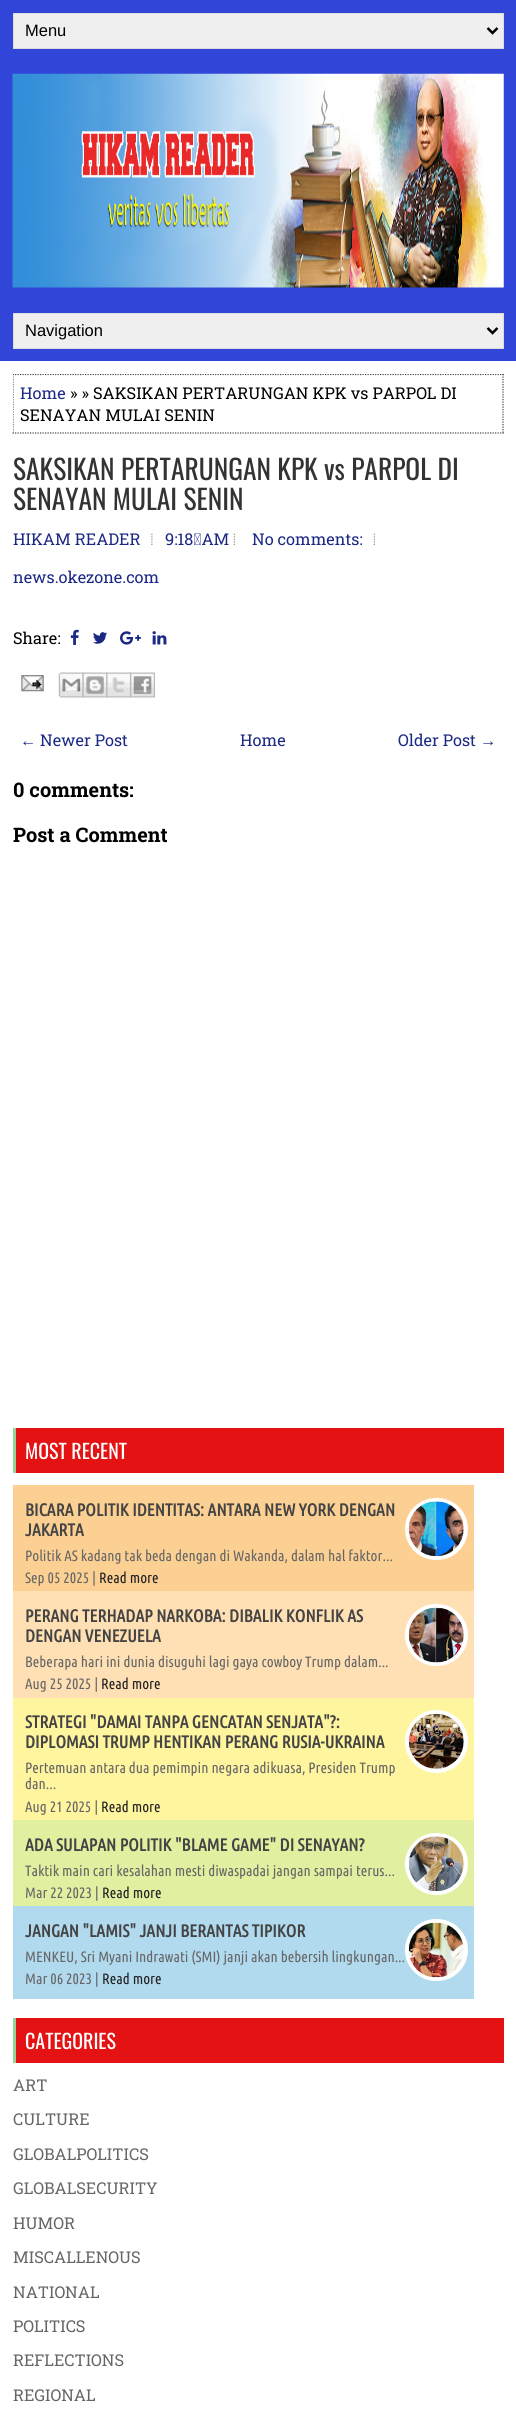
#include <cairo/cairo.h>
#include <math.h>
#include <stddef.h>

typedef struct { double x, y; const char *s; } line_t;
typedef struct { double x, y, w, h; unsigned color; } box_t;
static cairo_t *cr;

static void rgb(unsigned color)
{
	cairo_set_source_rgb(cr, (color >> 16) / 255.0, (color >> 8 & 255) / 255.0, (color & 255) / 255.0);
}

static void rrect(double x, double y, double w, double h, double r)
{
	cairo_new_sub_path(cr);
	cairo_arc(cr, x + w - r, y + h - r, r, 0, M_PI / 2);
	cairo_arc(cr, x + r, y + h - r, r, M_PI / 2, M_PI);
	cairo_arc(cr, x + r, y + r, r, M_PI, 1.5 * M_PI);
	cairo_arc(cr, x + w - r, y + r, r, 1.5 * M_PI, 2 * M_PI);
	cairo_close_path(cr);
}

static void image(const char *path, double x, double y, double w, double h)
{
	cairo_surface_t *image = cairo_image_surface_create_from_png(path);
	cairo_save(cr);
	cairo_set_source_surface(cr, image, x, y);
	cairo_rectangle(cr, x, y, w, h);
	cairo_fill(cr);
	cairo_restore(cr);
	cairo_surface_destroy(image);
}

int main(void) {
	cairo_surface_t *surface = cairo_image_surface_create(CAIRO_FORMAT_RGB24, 516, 2412);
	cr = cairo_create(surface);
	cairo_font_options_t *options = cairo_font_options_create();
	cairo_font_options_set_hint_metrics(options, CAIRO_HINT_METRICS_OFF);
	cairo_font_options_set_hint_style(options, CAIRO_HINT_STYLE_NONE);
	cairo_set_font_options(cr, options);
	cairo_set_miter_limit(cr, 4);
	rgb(0x3146d8);
	cairo_paint(cr);
	rgb(0xefefef);
	cairo_rectangle(cr, 13.5, 13.5, 490, 35);
	cairo_fill_preserve(cr);
	rgb(0xdddddd);
	cairo_set_line_width(cr, 1);
	cairo_stroke(cr);
	cairo_new_path(cr);
	cairo_move_to(cr, 487.5, 28);
	cairo_line_to(cr, 492.5, 33);
	cairo_line_to(cr, 497.5, 28);
	rgb(0x000000);
	cairo_set_line_width(cr, 2.5);
	cairo_stroke(cr);
	image("img/1.png", 12, 73, 492, 215);
	rgb(0xefefef);
	cairo_rectangle(cr, 13.5, 313.5, 490, 35);
	cairo_fill_preserve(cr);
	rgb(0xdddddd);
	cairo_set_line_width(cr, 1);
	cairo_stroke(cr);
	cairo_new_path(cr);
	cairo_move_to(cr, 487.5, 328);
	cairo_line_to(cr, 492.5, 333);
	cairo_line_to(cr, 497.5, 328);
	rgb(0x000000);
	cairo_set_line_width(cr, 2.5);
	cairo_stroke(cr);
	rgb(0xffffff);
	cairo_rectangle(cr, 0, 361, 516, 2051);
	cairo_fill(cr);
	cairo_save(cr);
	cairo_rectangle(cr, 13, 374, 491, 1054);
	cairo_clip(cr);
	cairo_new_path(cr);
	cairo_move_to(cr, 12.5, 374.5);
	cairo_line_to(cr, 504, 374.5);
	rgb(0x444444);
	cairo_set_line_width(cr, 1.2);
	cairo_set_dash(cr, (double[]){1.25, 1.25}, 2, 0);
	cairo_stroke(cr);
	cairo_restore(cr);
	cairo_new_path(cr);
	cairo_move_to(cr, 503, 374);
	cairo_line_to(cr, 503, 434);
	rgb(0x444444);
	cairo_set_line_width(cr, 1.2);
	cairo_set_dash(cr, (double[]){1.25, 1.25}, 2, 0);
	cairo_stroke(cr);
	cairo_new_path(cr);
	cairo_move_to(cr, 12.5, 433);
	cairo_line_to(cr, 504, 433);
	cairo_stroke(cr);
	cairo_save(cr);
	cairo_rectangle(cr, 13, 374, 491, 1054);
	cairo_clip(cr);
	cairo_new_path(cr);
	cairo_move_to(cr, 13, 374);
	cairo_line_to(cr, 13, 434);
	cairo_stroke(cr);
	cairo_restore(cr);
	image("img/2.png", 151, 533, 2, 12);
	image("img/3.png", 233, 533, 2, 12);
	image("img/3.png", 373, 533, 2, 12);
	image("img/4.png", 70, 629, 9, 16);
	image("img/5.png", 93, 632, 14, 12);
	image("img/6.png", 120, 631, 21, 14);
	image("img/7.png", 152, 631, 15, 14);
	image("img/8.png", 21, 675, 23, 17);
	image("img/9.png", 58, 672, 26, 26);
	image("img/10.png", 82, 672, 26, 26);
	image("img/11.png", 106, 672, 26, 26);
	image("img/12.png", 130, 672, 25, 26);
	{
		static const box_t items[] = {
			{16, 1428, 488, 45, 0xe41212},
			{13, 1428, 3, 45, 0x95d396},
			{13, 1485, 461, 106, 0xfcd092},
		};
		for (size_t i = 0; i < sizeof items / sizeof *items; i++) {
			rgb(items[i].color);
			cairo_rectangle(cr, items[i].x, items[i].y, items[i].w, items[i].h);
			cairo_fill(cr);
		}
	}
	rgb(0xffffff);
	rrect(405, 1498, 63, 62, 31);
	cairo_fill(cr);
	image("img/13.png", 408, 1501, 56, 56);
	rgb(0xffe0b4);
	cairo_rectangle(cr, 13, 1591, 461, 107);
	cairo_fill(cr);
	rgb(0xffffff);
	rrect(405, 1604, 63, 62, 31);
	cairo_fill(cr);
	image("img/14.png", 408, 1607, 56, 56);
	rgb(0xfff59e);
	cairo_rectangle(cr, 13, 1698, 461, 122);
	cairo_fill(cr);
	rgb(0xffffff);
	cairo_arc(cr, 436.5, 1741.5, 31.5, 0, 2 * M_PI);
	cairo_fill(cr);
	image("img/15.png", 408, 1713, 56, 56);
	rgb(0xe1efa0);
	cairo_rectangle(cr, 13, 1820, 461, 86);
	cairo_fill(cr);
	rgb(0xffffff);
	rrect(405, 1833, 63, 62, 31);
	cairo_fill(cr);
	image("img/16.png", 408, 1836, 56, 56);
	rgb(0xb1daef);
	cairo_rectangle(cr, 13, 1906, 461, 93);
	cairo_fill(cr);
	rgb(0xffffff);
	rrect(405, 1919, 63, 62, 31);
	cairo_fill(cr);
	image("img/17.png", 408, 1922, 56, 56);
	rgb(0xe41212);
	cairo_rectangle(cr, 16, 2018, 488, 45);
	cairo_fill(cr);
	rgb(0x95d396);
	cairo_rectangle(cr, 13, 2018, 3, 45);
	cairo_fill(cr);
	cairo_select_font_face(cr, "Liberation Sans", CAIRO_FONT_SLANT_NORMAL, CAIRO_FONT_WEIGHT_NORMAL);
	cairo_set_font_size(cr, 16.5);
	rgb(0x000000);
	cairo_move_to(cr, 25, 36);
	cairo_show_text(cr, "Menu");
	cairo_move_to(cr, 25, 336);
	cairo_show_text(cr, "Navigation");
	cairo_select_font_face(cr, "Roboto Slab", CAIRO_FONT_SLANT_NORMAL, CAIRO_FONT_WEIGHT_NORMAL);
	cairo_set_font_size(cr, 16.25);
	rgb(0x1b2884);
	cairo_move_to(cr, 20, 399);
	cairo_show_text(cr, "Home");
	rgb(0x000000);
	cairo_move_to(cr, 70, 399);
	cairo_show_text(cr, "» » SAKSIKAN PERTARUNGAN KPK vs PARPOL DI");
	cairo_move_to(cr, 20, 421);
	cairo_show_text(cr, "SENAYAN MULAI SENIN");
	cairo_select_font_face(cr, "Oswald", CAIRO_FONT_SLANT_NORMAL, CAIRO_FONT_WEIGHT_NORMAL);
	cairo_set_font_size(cr, 27.5);
	rgb(0x333333);
	cairo_move_to(cr, 13, 480);
	cairo_show_text(cr, "SAKSIKAN PERTARUNGAN KPK vs PARPOL DI");
	cairo_move_to(cr, 13, 510);
	cairo_show_text(cr, "SENAYAN MULAI SENIN");
	cairo_select_font_face(cr, "Roboto Slab", CAIRO_FONT_SLANT_NORMAL, CAIRO_FONT_WEIGHT_NORMAL);
	cairo_set_font_size(cr, 16.25);
	rgb(0x1b2884);
	{
		static const line_t items[] = {
			{13, 545, "HIKAM READER"},
			{165, 545, "9:18 AM"},
			{252, 545, "No comments:"},
			{13, 583, "news.okezone.com"},
		};
		for (size_t i = 0; i < sizeof items / sizeof *items; i++) {
			cairo_move_to(cr, items[i].x, items[i].y);
			cairo_show_text(cr, items[i].s);
		}
	}
	rgb(0x000000);
	cairo_move_to(cr, 13, 644);
	cairo_show_text(cr, "Share:");
	cairo_select_font_face(cr, "Liberation Sans", CAIRO_FONT_SLANT_NORMAL, CAIRO_FONT_WEIGHT_NORMAL);
	rgb(0x1b2884);
	cairo_move_to(cr, 20, 746);
	cairo_show_text(cr, "←");
	cairo_select_font_face(cr, "Roboto Slab", CAIRO_FONT_SLANT_NORMAL, CAIRO_FONT_WEIGHT_NORMAL);
	{
		static const line_t items[] = {
			{40, 746, "Newer Post"},
			{240, 746, "Home"},
			{398, 746, "Older Post"},
		};
		for (size_t i = 0; i < sizeof items / sizeof *items; i++) {
			cairo_move_to(cr, items[i].x, items[i].y);
			cairo_show_text(cr, items[i].s);
		}
	}
	cairo_select_font_face(cr, "Liberation Sans", CAIRO_FONT_SLANT_NORMAL, CAIRO_FONT_WEIGHT_NORMAL);
	cairo_move_to(cr, 480, 746);
	cairo_show_text(cr, "→");
	cairo_select_font_face(cr, "Roboto Slab", CAIRO_FONT_SLANT_NORMAL, CAIRO_FONT_WEIGHT_BOLD);
	cairo_set_font_size(cr, 20);
	rgb(0x000000);
	cairo_move_to(cr, 13, 797);
	cairo_show_text(cr, "0 comments:");
	cairo_move_to(cr, 13, 842);
	cairo_show_text(cr, "Post a Comment");
	cairo_select_font_face(cr, "Oswald", CAIRO_FONT_SLANT_NORMAL, CAIRO_FONT_WEIGHT_NORMAL);
	rgb(0xffffff);
	cairo_move_to(cr, 25, 1459);
	cairo_show_text(cr, "MOST RECENT");
	cairo_select_font_face(cr, "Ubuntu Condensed", CAIRO_FONT_SLANT_NORMAL, CAIRO_FONT_WEIGHT_BOLD);
	cairo_set_font_size(cr, 17.5);
	rgb(0x444444);
	cairo_move_to(cr, 25, 1516);
	cairo_show_text(cr, "BICARA POLITIK IDENTITAS: ANTARA NEW YORK DENGAN");
	cairo_move_to(cr, 25, 1536);
	cairo_show_text(cr, "JAKARTA");
	cairo_select_font_face(cr, "Ubuntu Condensed", CAIRO_FONT_SLANT_NORMAL, CAIRO_FONT_WEIGHT_NORMAL);
	cairo_set_font_size(cr, 15);
	rgb(0x666666);
	cairo_move_to(cr, 25, 1561);
	cairo_show_text(cr, "Politik AS kadang tak beda dengan di Wakanda, dalam hal faktor...");
	cairo_move_to(cr, 25, 1583);
	cairo_show_text(cr, "Sep 05 2025 |");
	rgb(0x222222);
	cairo_move_to(cr, 99, 1583);
	cairo_show_text(cr, "Read more");
	cairo_select_font_face(cr, "Ubuntu Condensed", CAIRO_FONT_SLANT_NORMAL, CAIRO_FONT_WEIGHT_BOLD);
	cairo_set_font_size(cr, 17.5);
	rgb(0x444444);
	cairo_move_to(cr, 25, 1622);
	cairo_show_text(cr, "PERANG TERHADAP NARKOBA: DIBALIK KONFLIK AS");
	cairo_move_to(cr, 25, 1642);
	cairo_show_text(cr, "DENGAN VENEZUELA");
	cairo_select_font_face(cr, "Ubuntu Condensed", CAIRO_FONT_SLANT_NORMAL, CAIRO_FONT_WEIGHT_NORMAL);
	cairo_set_font_size(cr, 15);
	rgb(0x666666);
	cairo_move_to(cr, 25, 1667);
	cairo_show_text(cr, "Beberapa hari ini dunia disuguhi lagi gaya cowboy Trump dalam...");
	cairo_move_to(cr, 25, 1689);
	cairo_show_text(cr, "Aug 25 2025 |");
	rgb(0x222222);
	cairo_move_to(cr, 101, 1689);
	cairo_show_text(cr, "Read more");
	cairo_select_font_face(cr, "Ubuntu Condensed", CAIRO_FONT_SLANT_NORMAL, CAIRO_FONT_WEIGHT_BOLD);
	cairo_set_font_size(cr, 17.5);
	rgb(0x444444);
	cairo_move_to(cr, 25, 1728);
	cairo_show_text(cr, "STRATEGI \"DAMAI TANPA GENCATAN SENJATA\"?:");
	cairo_move_to(cr, 25, 1748);
	cairo_show_text(cr, "DIPLOMASI TRUMP HENTIKAN PERANG RUSIA-UKRAINA");
	cairo_select_font_face(cr, "Ubuntu Condensed", CAIRO_FONT_SLANT_NORMAL, CAIRO_FONT_WEIGHT_NORMAL);
	cairo_set_font_size(cr, 15);
	rgb(0x666666);
	{
		static const line_t items[] = {
			{25, 1773, "Pertemuan antara dua pemimpin negara adikuasa, Presiden Trump"},
			{25, 1789, "dan..."},
			{25, 1812, "Aug 21 2025 |"},
		};
		for (size_t i = 0; i < sizeof items / sizeof *items; i++) {
			cairo_move_to(cr, items[i].x, items[i].y);
			cairo_show_text(cr, items[i].s);
		}
	}
	rgb(0x222222);
	cairo_move_to(cr, 101, 1812);
	cairo_show_text(cr, "Read more");
	cairo_select_font_face(cr, "Ubuntu Condensed", CAIRO_FONT_SLANT_NORMAL, CAIRO_FONT_WEIGHT_BOLD);
	cairo_set_font_size(cr, 17.5);
	rgb(0x444444);
	cairo_move_to(cr, 25, 1851);
	cairo_show_text(cr, "ADA SULAPAN POLITIK \"BLAME GAME\" DI SENAYAN?");
	cairo_select_font_face(cr, "Ubuntu Condensed", CAIRO_FONT_SLANT_NORMAL, CAIRO_FONT_WEIGHT_NORMAL);
	cairo_set_font_size(cr, 15);
	rgb(0x666666);
	cairo_move_to(cr, 25, 1876);
	cairo_show_text(cr, "Taktik main cari kesalahan mesti diwaspadai jangan sampai terus...");
	cairo_move_to(cr, 25, 1898);
	cairo_show_text(cr, "Mar 22 2023 |");
	rgb(0x222222);
	cairo_move_to(cr, 102, 1898);
	cairo_show_text(cr, "Read more");
	cairo_select_font_face(cr, "Ubuntu Condensed", CAIRO_FONT_SLANT_NORMAL, CAIRO_FONT_WEIGHT_BOLD);
	cairo_set_font_size(cr, 17.5);
	rgb(0x444444);
	cairo_move_to(cr, 25, 1937);
	cairo_show_text(cr, "JANGAN \"LAMIS\" JANJI BERANTAS TIPIKOR");
	cairo_select_font_face(cr, "Ubuntu Condensed", CAIRO_FONT_SLANT_NORMAL, CAIRO_FONT_WEIGHT_NORMAL);
	cairo_set_font_size(cr, 15);
	rgb(0x666666);
	cairo_move_to(cr, 25, 1962);
	cairo_show_text(cr, "MENKEU, Sri Myani Indrawati (SMI) janji akan bebersih lingkungan...");
	cairo_move_to(cr, 25, 1984);
	cairo_show_text(cr, "Mar 06 2023 |");
	rgb(0x222222);
	cairo_move_to(cr, 102, 1984);
	cairo_show_text(cr, "Read more");
	cairo_select_font_face(cr, "Oswald", CAIRO_FONT_SLANT_NORMAL, CAIRO_FONT_WEIGHT_NORMAL);
	cairo_set_font_size(cr, 20);
	rgb(0xffffff);
	cairo_move_to(cr, 25, 2049);
	cairo_show_text(cr, "CATEGORIES");
	cairo_select_font_face(cr, "Roboto Slab", CAIRO_FONT_SLANT_NORMAL, CAIRO_FONT_WEIGHT_NORMAL);
	cairo_set_font_size(cr, 16.25);
	rgb(0x666666);
	{
		static const line_t items[] = {
			{13, 2091, "ART"},
			{13, 2125, "CULTURE"},
			{13, 2160, "GLOBALPOLITICS"},
			{13, 2194, "GLOBALSECURITY"},
			{13, 2229, "HUMOR"},
			{13, 2263, "MISCALLENOUS"},
			{13, 2298, "NATIONAL"},
			{13, 2332, "POLITICS"},
			{13, 2366, "REFLECTIONS"},
			{13, 2401, "REGIONAL"},
		};
		for (size_t i = 0; i < sizeof items / sizeof *items; i++) {
			cairo_move_to(cr, items[i].x, items[i].y);
			cairo_show_text(cr, items[i].s);
		}
	}
	cairo_surface_write_to_png(surface, "page.png");
	cairo_font_options_destroy(options);
	cairo_destroy(cr);
	cairo_surface_destroy(surface);
	return 0;
}
